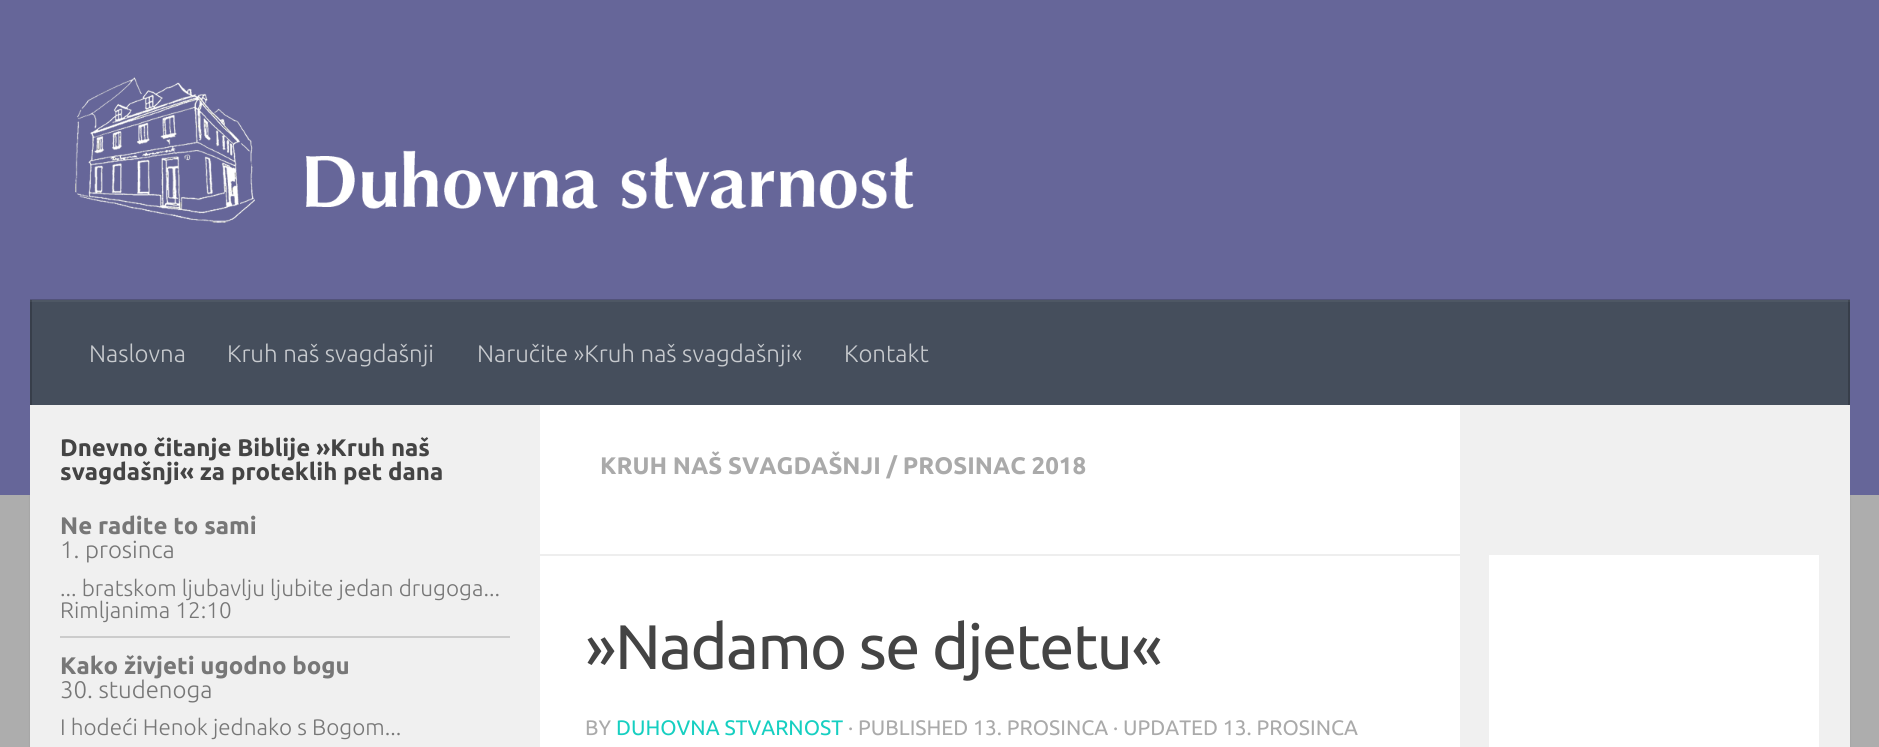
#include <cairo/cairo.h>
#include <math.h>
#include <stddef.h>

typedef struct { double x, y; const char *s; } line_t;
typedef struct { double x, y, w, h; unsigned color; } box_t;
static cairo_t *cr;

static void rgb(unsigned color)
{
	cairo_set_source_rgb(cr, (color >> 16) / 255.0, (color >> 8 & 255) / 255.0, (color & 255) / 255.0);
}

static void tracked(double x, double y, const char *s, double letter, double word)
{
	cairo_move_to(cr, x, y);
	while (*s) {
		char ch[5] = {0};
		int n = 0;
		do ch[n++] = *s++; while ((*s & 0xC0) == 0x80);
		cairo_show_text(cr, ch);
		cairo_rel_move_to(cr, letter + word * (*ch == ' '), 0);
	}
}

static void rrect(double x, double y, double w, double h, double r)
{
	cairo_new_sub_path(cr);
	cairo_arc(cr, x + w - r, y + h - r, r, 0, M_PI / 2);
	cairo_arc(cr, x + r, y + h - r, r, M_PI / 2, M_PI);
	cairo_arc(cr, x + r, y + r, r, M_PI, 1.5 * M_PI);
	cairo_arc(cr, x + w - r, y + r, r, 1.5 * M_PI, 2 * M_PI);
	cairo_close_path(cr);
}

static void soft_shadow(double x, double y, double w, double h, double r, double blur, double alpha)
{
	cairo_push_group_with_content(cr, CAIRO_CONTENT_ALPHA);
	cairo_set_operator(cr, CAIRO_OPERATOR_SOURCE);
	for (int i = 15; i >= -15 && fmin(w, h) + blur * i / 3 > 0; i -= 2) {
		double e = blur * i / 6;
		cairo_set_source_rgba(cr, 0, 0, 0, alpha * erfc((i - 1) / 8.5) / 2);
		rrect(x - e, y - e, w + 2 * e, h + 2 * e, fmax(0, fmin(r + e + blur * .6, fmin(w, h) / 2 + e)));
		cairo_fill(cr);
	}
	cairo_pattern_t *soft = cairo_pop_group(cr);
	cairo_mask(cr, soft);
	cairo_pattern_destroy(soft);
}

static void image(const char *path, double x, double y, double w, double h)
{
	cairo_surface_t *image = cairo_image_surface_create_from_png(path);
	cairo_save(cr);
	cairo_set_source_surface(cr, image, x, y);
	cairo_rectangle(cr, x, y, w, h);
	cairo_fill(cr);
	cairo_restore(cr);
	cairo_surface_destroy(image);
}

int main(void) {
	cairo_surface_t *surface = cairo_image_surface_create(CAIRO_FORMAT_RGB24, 1879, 747);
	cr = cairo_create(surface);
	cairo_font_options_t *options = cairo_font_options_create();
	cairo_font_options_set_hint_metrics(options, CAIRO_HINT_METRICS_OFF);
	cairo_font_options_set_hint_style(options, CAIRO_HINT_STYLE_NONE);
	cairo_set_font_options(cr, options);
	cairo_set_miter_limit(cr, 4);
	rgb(0xadadad);
	cairo_paint(cr);
	rgb(0x000000);
	soft_shadow(30, 407, 1820, 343, 0, 1, 0.1);
	rgb(0x666699);
	cairo_rectangle(cr, 0, 0, 1879, 495);
	cairo_fill(cr);
	image("img/1.png", 75, 77, 839, 146);
	rgb(0x52527a);
	cairo_new_path(cr);
	cairo_move_to(cr, 30, 299);
	cairo_line_to(cr, 30, 300);
	cairo_line_to(cr, 1850, 300);
	cairo_line_to(cr, 1850, 404);
	cairo_line_to(cr, 1850, 299);
	cairo_close_path(cr);
	cairo_fill(cr);
	{
		static const box_t items[] = {
			{32, 302, 1816, 103, 0x454e5c},
			{30, 300, 1820, 2, 0x4e5764},
			{1848, 300, 2, 105, 0x373e4a},
			{1848, 300, 2, 2, 0x414853},
			{30, 300, 2, 105, 0x373e4a},
			{30, 300, 2, 2, 0x414853},
			{540, 405, 920, 342, 0xffffff},
			{30, 405, 510, 342, 0xf0f0f0},
			{1460, 405, 390, 342, 0xf0f0f0},
			{60, 636, 450, 2, 0xcccccc},
			{540, 554, 920, 2, 0xeeeeee},
			{1489, 555, 330, 192, 0xffffff},
		};
		for (size_t i = 0; i < sizeof items / sizeof *items; i++) {
			rgb(items[i].color);
			cairo_rectangle(cr, items[i].x, items[i].y, items[i].w, items[i].h);
			cairo_fill(cr);
		}
	}
	cairo_select_font_face(cr, "Ubuntu Light", CAIRO_FONT_SLANT_NORMAL, CAIRO_FONT_WEIGHT_NORMAL);
	cairo_set_font_size(cr, 24);
	rgb(0xc7cace);
	{
		static const line_t items[] = {
			{89, 362, "Naslovna"},
			{227, 362, "Kruh naš svagdašnji"},
			{477, 362, "Naručite »Kruh naš svagdašnji«"},
			{844, 362, "Kontakt"},
		};
		for (size_t i = 0; i < sizeof items / sizeof *items; i++) {
			cairo_move_to(cr, items[i].x, items[i].y);
			cairo_show_text(cr, items[i].s);
		}
	}
	cairo_select_font_face(cr, "Ubuntu", CAIRO_FONT_SLANT_NORMAL, CAIRO_FONT_WEIGHT_BOLD);
	rgb(0x444444);
	cairo_move_to(cr, 60, 456);
	cairo_show_text(cr, "Dnevno čitanje Biblije »Kruh naš");
	cairo_move_to(cr, 60, 480);
	cairo_show_text(cr, "svagdašnji« za proteklih pet dana");
	rgb(0x777777);
	cairo_move_to(cr, 60, 534);
	cairo_show_text(cr, "Ne radite to sami");
	cairo_select_font_face(cr, "Ubuntu Light", CAIRO_FONT_SLANT_NORMAL, CAIRO_FONT_WEIGHT_NORMAL);
	cairo_move_to(cr, 60, 558);
	cairo_show_text(cr, "1. prosinca");
	cairo_set_font_size(cr, 22.5);
	cairo_move_to(cr, 60, 596);
	cairo_show_text(cr, "... bratskom ljubavlju ljubite jedan drugoga...");
	cairo_move_to(cr, 60, 618);
	cairo_show_text(cr, "Rimljanima 12:10");
	cairo_select_font_face(cr, "Ubuntu", CAIRO_FONT_SLANT_NORMAL, CAIRO_FONT_WEIGHT_BOLD);
	cairo_set_font_size(cr, 24);
	cairo_move_to(cr, 60, 674);
	cairo_show_text(cr, "Kako živjeti ugodno bogu");
	cairo_select_font_face(cr, "Ubuntu Light", CAIRO_FONT_SLANT_NORMAL, CAIRO_FONT_WEIGHT_NORMAL);
	cairo_move_to(cr, 60, 698);
	cairo_show_text(cr, "30. studenoga");
	cairo_set_font_size(cr, 22.5);
	cairo_move_to(cr, 60, 735);
	cairo_show_text(cr, "I hodeći Henok jednako s Bogom...");
	cairo_select_font_face(cr, "Ubuntu", CAIRO_FONT_SLANT_NORMAL, CAIRO_FONT_WEIGHT_BOLD);
	cairo_set_font_size(cr, 24);
	rgb(0xaaaaaa);
	cairo_move_to(cr, 600, 474);
	cairo_show_text(cr, "KRUH NAŠ SVAGDAŠNJI / PROSINAC 2018");
	cairo_select_font_face(cr, "Ubuntu", CAIRO_FONT_SLANT_NORMAL, CAIRO_FONT_WEIGHT_NORMAL);
	cairo_set_font_size(cr, 62.9);
	rgb(0x444444);
	tracked(585, 669, "»Nadamo se djetetu«", -1.5, 0);
	cairo_set_font_size(cr, 21);
	rgb(0xaaaaaa);
	cairo_move_to(cr, 585, 735);
	cairo_show_text(cr, "BY");
	rgb(0x16cfc1);
	cairo_move_to(cr, 616, 735);
	cairo_show_text(cr, "DUHOVNA STVARNOST");
	rgb(0xaaaaaa);
	cairo_move_to(cr, 848, 735);
	cairo_show_text(cr, "· PUBLISHED 13. PROSINCA · UPDATED 13. PROSINCA");
	cairo_surface_write_to_png(surface, "page.png");
	cairo_font_options_destroy(options);
	cairo_destroy(cr);
	cairo_surface_destroy(surface);
	return 0;
}
